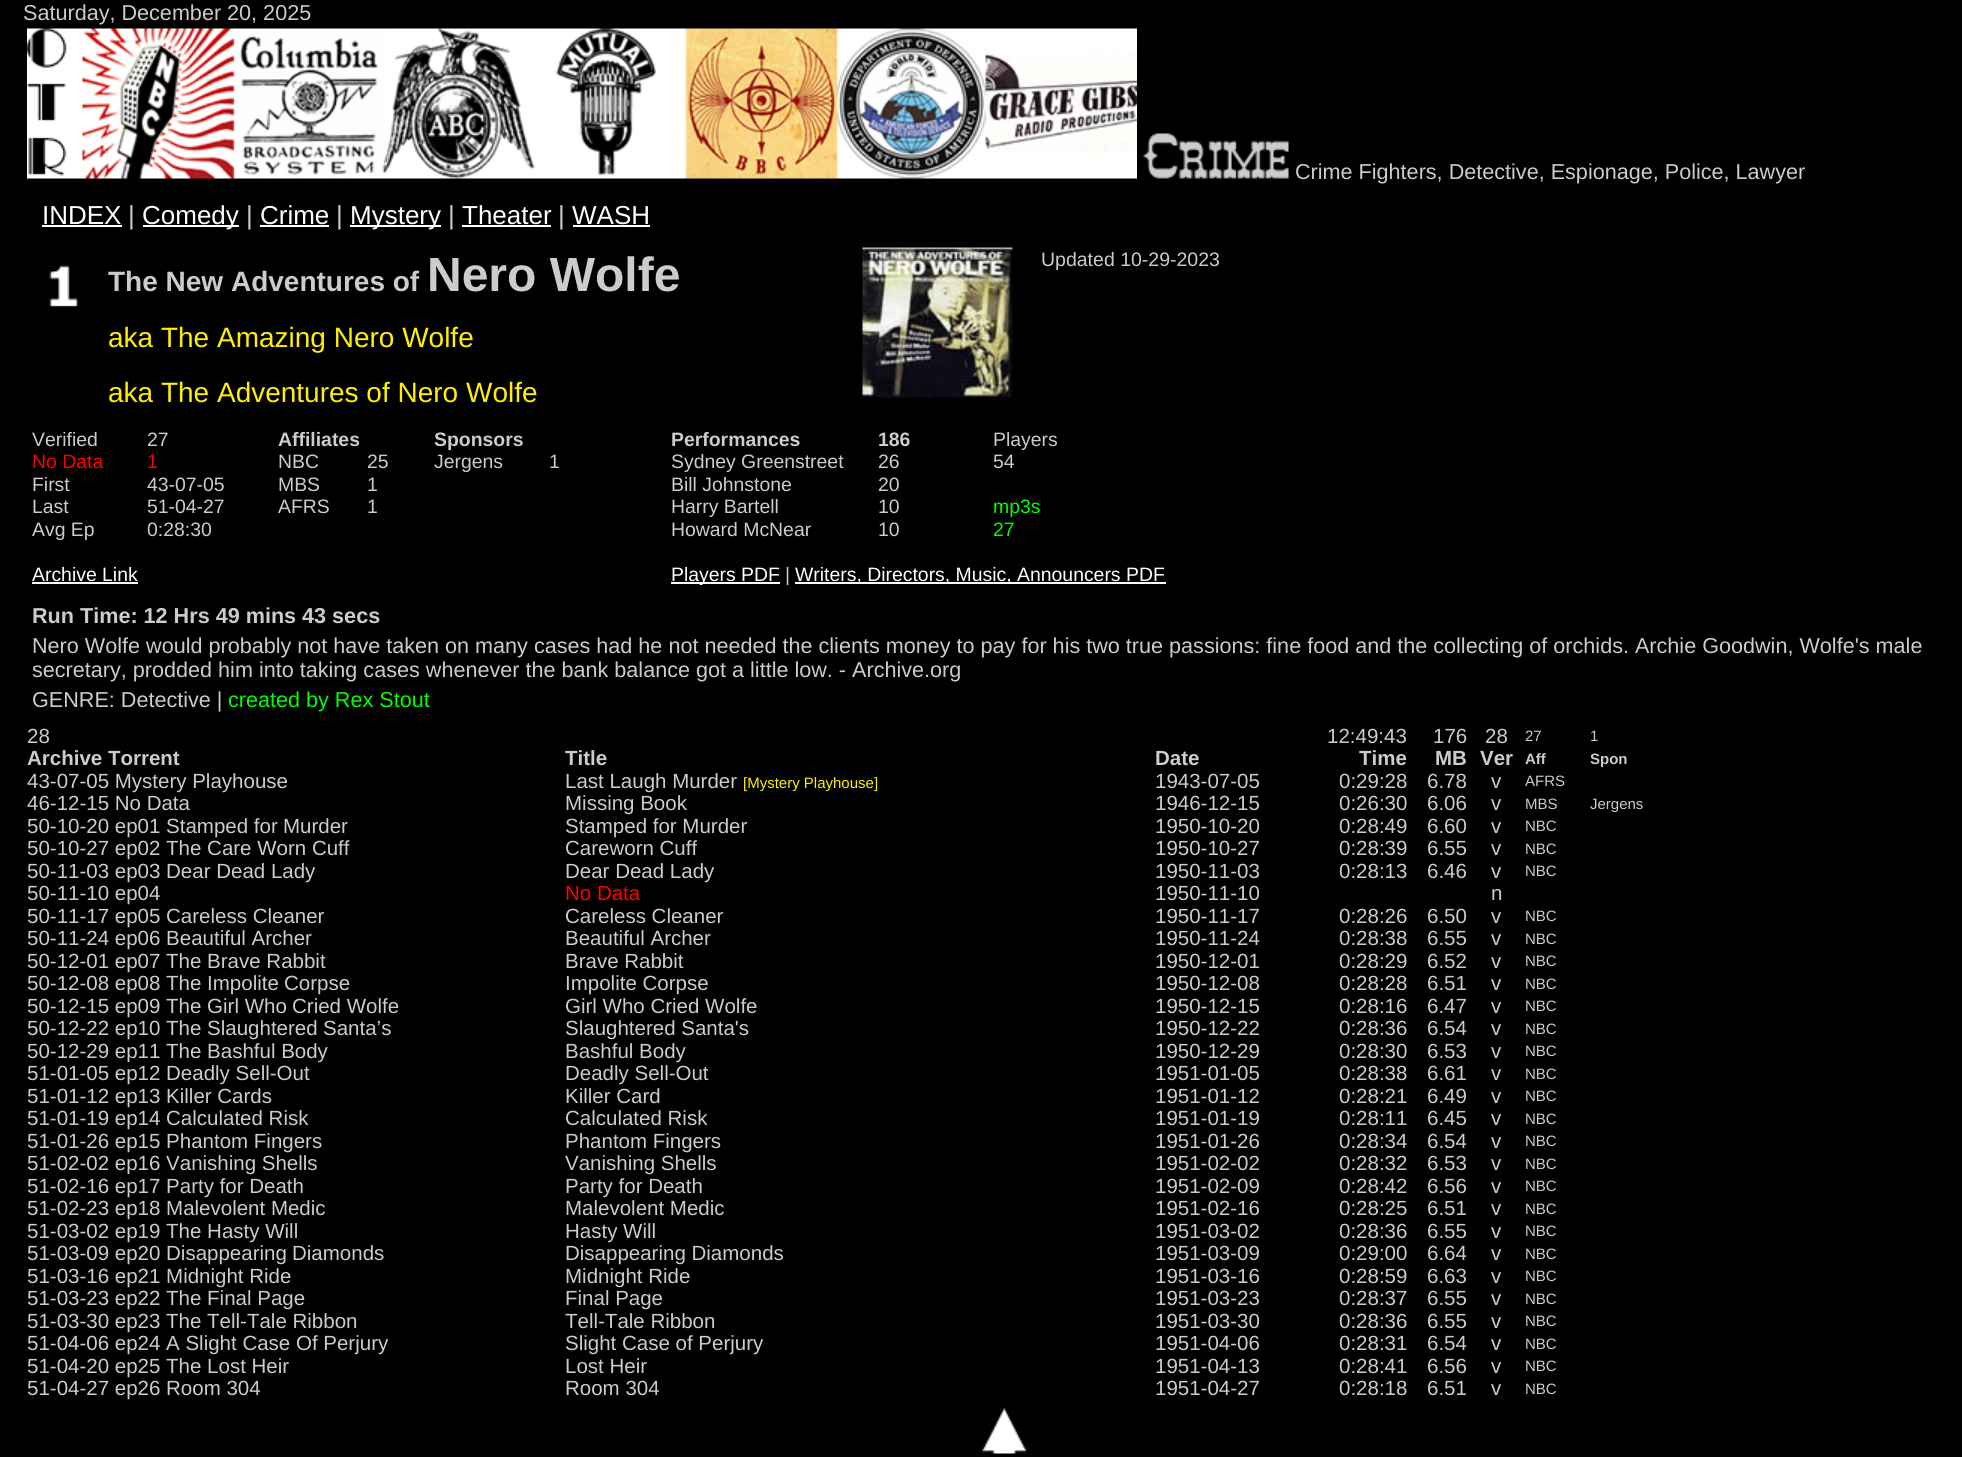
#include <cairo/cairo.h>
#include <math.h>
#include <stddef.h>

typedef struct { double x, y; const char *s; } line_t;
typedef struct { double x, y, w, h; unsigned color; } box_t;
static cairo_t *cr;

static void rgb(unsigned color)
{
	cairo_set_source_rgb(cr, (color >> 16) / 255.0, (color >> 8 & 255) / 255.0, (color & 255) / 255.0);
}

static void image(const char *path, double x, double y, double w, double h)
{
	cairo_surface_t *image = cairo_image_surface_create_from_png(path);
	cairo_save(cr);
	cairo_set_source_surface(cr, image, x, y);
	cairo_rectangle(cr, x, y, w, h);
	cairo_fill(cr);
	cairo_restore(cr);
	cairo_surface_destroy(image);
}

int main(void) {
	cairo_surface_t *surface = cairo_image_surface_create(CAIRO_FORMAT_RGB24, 1962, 1457);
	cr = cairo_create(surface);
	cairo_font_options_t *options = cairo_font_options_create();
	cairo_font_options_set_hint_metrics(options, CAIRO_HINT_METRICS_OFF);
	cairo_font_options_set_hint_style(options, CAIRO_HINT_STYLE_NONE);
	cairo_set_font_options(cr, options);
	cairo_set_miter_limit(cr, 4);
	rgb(0x000000);
	cairo_paint(cr);
	image("img/1.png", 27, 28, 1110, 151);
	image("img/2.png", 1143, 133, 146, 46);
	{
		static const box_t items[] = {
			{42, 225, 80, 2, 0xffffff},
			{143, 225, 96, 2, 0xffffff},
			{260, 225, 69, 2, 0xffffff},
			{350, 225, 91, 2, 0xffffff},
			{462, 225, 89, 2, 0xffffff},
			{573, 225, 77, 2, 0xffffff},
		};
		for (size_t i = 0; i < sizeof items / sizeof *items; i++) {
			rgb(items[i].color);
			cairo_rectangle(cr, items[i].x, items[i].y, items[i].w, items[i].h);
			cairo_fill(cr);
		}
	}
	image("img/3.png", 49, 265, 30, 42);
	image("img/4.png", 862, 247, 151, 151);
	{
		static const box_t items[] = {
			{32, 582, 106, 2, 0xffffff},
			{671, 582, 109, 2, 0xffffff},
			{795, 582, 371, 2, 0xffffff},
		};
		for (size_t i = 0; i < sizeof items / sizeof *items; i++) {
			rgb(items[i].color);
			cairo_rectangle(cr, items[i].x, items[i].y, items[i].w, items[i].h);
			cairo_fill(cr);
		}
	}
	image("img/5.png", 982, 1408, 44, 46);
	cairo_select_font_face(cr, "Liberation Sans", CAIRO_FONT_SLANT_NORMAL, CAIRO_FONT_WEIGHT_NORMAL);
	cairo_set_font_size(cr, 21.6);
	rgb(0xcccccc);
	cairo_move_to(cr, 23, 20);
	cairo_show_text(cr, "Saturday, December 20, 2025");
	cairo_move_to(cr, 1295, 179);
	cairo_show_text(cr, "Crime Fighters, Detective, Espionage, Police, Lawyer");
	cairo_set_font_size(cr, 26);
	rgb(0xffffff);
	cairo_move_to(cr, 42, 224);
	cairo_show_text(cr, "INDEX");
	rgb(0xcccccc);
	cairo_move_to(cr, 128, 224);
	cairo_show_text(cr, "|");
	rgb(0xffffff);
	cairo_move_to(cr, 142, 224);
	cairo_show_text(cr, "Comedy");
	rgb(0xcccccc);
	cairo_move_to(cr, 246, 224);
	cairo_show_text(cr, "|");
	rgb(0xffffff);
	cairo_move_to(cr, 260, 224);
	cairo_show_text(cr, "Crime");
	rgb(0xcccccc);
	cairo_move_to(cr, 336, 224);
	cairo_show_text(cr, "|");
	rgb(0xffffff);
	cairo_move_to(cr, 350, 224);
	cairo_show_text(cr, "Mystery");
	rgb(0xcccccc);
	cairo_move_to(cr, 448, 224);
	cairo_show_text(cr, "|");
	rgb(0xffffff);
	cairo_move_to(cr, 462, 224);
	cairo_show_text(cr, "Theater");
	rgb(0xcccccc);
	cairo_move_to(cr, 558, 224);
	cairo_show_text(cr, "|");
	rgb(0xffffff);
	cairo_move_to(cr, 572, 224);
	cairo_show_text(cr, "WASH");
	cairo_select_font_face(cr, "Liberation Sans", CAIRO_FONT_SLANT_NORMAL, CAIRO_FONT_WEIGHT_BOLD);
	cairo_set_font_size(cr, 28);
	rgb(0xcccccc);
	cairo_move_to(cr, 108, 291);
	cairo_show_text(cr, "The New Adventures of");
	cairo_set_font_size(cr, 48);
	cairo_move_to(cr, 427, 291);
	cairo_show_text(cr, "Nero Wolfe");
	cairo_select_font_face(cr, "Liberation Sans", CAIRO_FONT_SLANT_NORMAL, CAIRO_FONT_WEIGHT_NORMAL);
	cairo_set_font_size(cr, 28);
	rgb(0xfff000);
	cairo_move_to(cr, 108, 347);
	cairo_show_text(cr, "aka The Amazing Nero Wolfe");
	cairo_move_to(cr, 108, 402);
	cairo_show_text(cr, "aka The Adventures of Nero Wolfe");
	cairo_set_font_size(cr, 19.5);
	rgb(0xcccccc);
	cairo_move_to(cr, 1041, 266);
	cairo_show_text(cr, "Updated 10-29-2023");
	cairo_set_font_size(cr, 19.4);
	cairo_move_to(cr, 32, 446);
	cairo_show_text(cr, "Verified");
	cairo_move_to(cr, 147, 446);
	cairo_show_text(cr, "27");
	rgb(0xff0000);
	cairo_move_to(cr, 32, 468);
	cairo_show_text(cr, "No Data");
	cairo_move_to(cr, 147, 468);
	cairo_show_text(cr, "1");
	rgb(0xcccccc);
	{
		static const line_t items[] = {
			{32, 491, "First"},
			{147, 491, "43-07-05"},
			{32, 513, "Last"},
			{147, 513, "51-04-27"},
			{32, 536, "Avg Ep"},
			{147, 536, "0:28:30"},
		};
		for (size_t i = 0; i < sizeof items / sizeof *items; i++) {
			cairo_move_to(cr, items[i].x, items[i].y);
			cairo_show_text(cr, items[i].s);
		}
	}
	rgb(0xffffff);
	cairo_move_to(cr, 32, 581);
	cairo_show_text(cr, "Archive Link");
	cairo_select_font_face(cr, "Liberation Sans", CAIRO_FONT_SLANT_NORMAL, CAIRO_FONT_WEIGHT_BOLD);
	rgb(0xcccccc);
	cairo_move_to(cr, 278, 446);
	cairo_show_text(cr, "Affiliates");
	cairo_select_font_face(cr, "Liberation Sans", CAIRO_FONT_SLANT_NORMAL, CAIRO_FONT_WEIGHT_NORMAL);
	{
		static const line_t items[] = {
			{278, 468, "NBC"},
			{367, 468, "25"},
			{278, 491, "MBS"},
			{367, 491, "1"},
			{278, 513, "AFRS"},
			{367, 513, "1"},
		};
		for (size_t i = 0; i < sizeof items / sizeof *items; i++) {
			cairo_move_to(cr, items[i].x, items[i].y);
			cairo_show_text(cr, items[i].s);
		}
	}
	cairo_select_font_face(cr, "Liberation Sans", CAIRO_FONT_SLANT_NORMAL, CAIRO_FONT_WEIGHT_BOLD);
	cairo_move_to(cr, 434, 446);
	cairo_show_text(cr, "Sponsors");
	cairo_select_font_face(cr, "Liberation Sans", CAIRO_FONT_SLANT_NORMAL, CAIRO_FONT_WEIGHT_NORMAL);
	cairo_move_to(cr, 434, 468);
	cairo_show_text(cr, "Jergens");
	cairo_move_to(cr, 549, 468);
	cairo_show_text(cr, "1");
	cairo_select_font_face(cr, "Liberation Sans", CAIRO_FONT_SLANT_NORMAL, CAIRO_FONT_WEIGHT_BOLD);
	cairo_move_to(cr, 671, 446);
	cairo_show_text(cr, "Performances");
	cairo_move_to(cr, 878, 446);
	cairo_show_text(cr, "186");
	cairo_select_font_face(cr, "Liberation Sans", CAIRO_FONT_SLANT_NORMAL, CAIRO_FONT_WEIGHT_NORMAL);
	{
		static const line_t items[] = {
			{993, 446, "Players"},
			{671, 468, "Sydney Greenstreet"},
			{878, 468, "26"},
			{993, 468, "54"},
			{671, 491, "Bill Johnstone"},
			{878, 491, "20"},
			{671, 513, "Harry Bartell"},
			{878, 513, "10"},
		};
		for (size_t i = 0; i < sizeof items / sizeof *items; i++) {
			cairo_move_to(cr, items[i].x, items[i].y);
			cairo_show_text(cr, items[i].s);
		}
	}
	rgb(0x00ff00);
	cairo_move_to(cr, 993, 513);
	cairo_show_text(cr, "mp3s");
	rgb(0xcccccc);
	cairo_move_to(cr, 671, 536);
	cairo_show_text(cr, "Howard McNear");
	cairo_move_to(cr, 878, 536);
	cairo_show_text(cr, "10");
	rgb(0x00ff00);
	cairo_move_to(cr, 993, 536);
	cairo_show_text(cr, "27");
	rgb(0xffffff);
	cairo_move_to(cr, 671, 581);
	cairo_show_text(cr, "Players PDF");
	rgb(0xcccccc);
	cairo_move_to(cr, 785, 581);
	cairo_show_text(cr, "|");
	rgb(0xffffff);
	cairo_move_to(cr, 795, 581);
	cairo_show_text(cr, "Writers, Directors, Music, Announcers PDF");
	cairo_select_font_face(cr, "Liberation Sans", CAIRO_FONT_SLANT_NORMAL, CAIRO_FONT_WEIGHT_BOLD);
	cairo_set_font_size(cr, 21.6);
	rgb(0xcccccc);
	cairo_move_to(cr, 32, 623);
	cairo_show_text(cr, "Run Time: 12 Hrs 49 mins 43 secs");
	cairo_select_font_face(cr, "Liberation Sans", CAIRO_FONT_SLANT_NORMAL, CAIRO_FONT_WEIGHT_NORMAL);
	{
		static const line_t items[] = {
			{32, 653, "Nero Wolfe would probably not have taken on many cases had he not needed the clients money to pay for his two true passions: fine food and the collecting of orchids. Archie Goodwin, Wolfe's male"},
			{32, 677, "secretary, prodded him into taking cases whenever the bank balance got a little low. - Archive.org"},
			{32, 707, "GENRE: Detective |"},
		};
		for (size_t i = 0; i < sizeof items / sizeof *items; i++) {
			cairo_move_to(cr, items[i].x, items[i].y);
			cairo_show_text(cr, items[i].s);
		}
	}
	rgb(0x00ff00);
	cairo_move_to(cr, 228, 707);
	cairo_show_text(cr, "created by Rex Stout");
	cairo_set_font_size(cr, 20.5);
	rgb(0xcccccc);
	{
		static const line_t items[] = {
			{27, 743, "28"},
			{1327, 743, "12:49:43"},
			{1433, 743, "176"},
			{1485, 743, "28"},
		};
		for (size_t i = 0; i < sizeof items / sizeof *items; i++) {
			cairo_move_to(cr, items[i].x, items[i].y);
			cairo_show_text(cr, items[i].s);
		}
	}
	cairo_set_font_size(cr, 15);
	cairo_move_to(cr, 1525, 741);
	cairo_show_text(cr, "27");
	cairo_move_to(cr, 1590, 741);
	cairo_show_text(cr, "1");
	cairo_select_font_face(cr, "Liberation Sans", CAIRO_FONT_SLANT_NORMAL, CAIRO_FONT_WEIGHT_BOLD);
	cairo_set_font_size(cr, 20.5);
	{
		static const line_t items[] = {
			{27, 765, "Archive Torrent"},
			{565, 765, "Title"},
			{1155, 765, "Date"},
			{1359, 765, "Time"},
			{1435, 765, "MB"},
			{1480, 765, "Ver"},
		};
		for (size_t i = 0; i < sizeof items / sizeof *items; i++) {
			cairo_move_to(cr, items[i].x, items[i].y);
			cairo_show_text(cr, items[i].s);
		}
	}
	cairo_set_font_size(cr, 15);
	cairo_move_to(cr, 1525, 764);
	cairo_show_text(cr, "Aff");
	cairo_move_to(cr, 1590, 764);
	cairo_show_text(cr, "Spon");
	cairo_select_font_face(cr, "Liberation Sans", CAIRO_FONT_SLANT_NORMAL, CAIRO_FONT_WEIGHT_NORMAL);
	cairo_set_font_size(cr, 20.5);
	cairo_move_to(cr, 27, 788);
	cairo_show_text(cr, "43-07-05 Mystery Playhouse");
	cairo_move_to(cr, 565, 788);
	cairo_show_text(cr, "Last Laugh Murder");
	cairo_set_font_size(cr, 15);
	rgb(0xfff000);
	cairo_move_to(cr, 743, 788);
	cairo_show_text(cr, "[Mystery Playhouse]");
	cairo_set_font_size(cr, 20.5);
	rgb(0xcccccc);
	{
		static const line_t items[] = {
			{1155, 788, "1943-07-05"},
			{1339, 788, "0:29:28"},
			{1427, 788, "6.78"},
			{1491, 788, "v"},
		};
		for (size_t i = 0; i < sizeof items / sizeof *items; i++) {
			cairo_move_to(cr, items[i].x, items[i].y);
			cairo_show_text(cr, items[i].s);
		}
	}
	cairo_set_font_size(cr, 15);
	cairo_move_to(cr, 1525, 786);
	cairo_show_text(cr, "AFRS");
	cairo_set_font_size(cr, 20.5);
	{
		static const line_t items[] = {
			{27, 810, "46-12-15 No Data"},
			{565, 810, "Missing Book"},
			{1155, 810, "1946-12-15"},
			{1339, 810, "0:26:30"},
			{1427, 810, "6.06"},
			{1491, 810, "v"},
		};
		for (size_t i = 0; i < sizeof items / sizeof *items; i++) {
			cairo_move_to(cr, items[i].x, items[i].y);
			cairo_show_text(cr, items[i].s);
		}
	}
	cairo_set_font_size(cr, 15);
	cairo_move_to(cr, 1525, 809);
	cairo_show_text(cr, "MBS");
	cairo_move_to(cr, 1590, 809);
	cairo_show_text(cr, "Jergens");
	cairo_set_font_size(cr, 20.5);
	{
		static const line_t items[] = {
			{27, 833, "50-10-20 ep01 Stamped for"},
			{283, 833, "Murder"},
			{565, 833, "Stamped for Murder"},
			{1155, 833, "1950-10-20"},
			{1339, 833, "0:28:49"},
			{1427, 833, "6.60"},
			{1491, 833, "v"},
		};
		for (size_t i = 0; i < sizeof items / sizeof *items; i++) {
			cairo_move_to(cr, items[i].x, items[i].y);
			cairo_show_text(cr, items[i].s);
		}
	}
	cairo_set_font_size(cr, 15);
	cairo_move_to(cr, 1525, 831);
	cairo_show_text(cr, "NBC");
	cairo_set_font_size(cr, 20.5);
	{
		static const line_t items[] = {
			{27, 855, "50-10-27 ep02 The Care Worn Cuff"},
			{565, 855, "Careworn Cuff"},
			{1155, 855, "1950-10-27"},
			{1339, 855, "0:28:39"},
			{1427, 855, "6.55"},
			{1491, 855, "v"},
		};
		for (size_t i = 0; i < sizeof items / sizeof *items; i++) {
			cairo_move_to(cr, items[i].x, items[i].y);
			cairo_show_text(cr, items[i].s);
		}
	}
	cairo_set_font_size(cr, 15);
	cairo_move_to(cr, 1525, 854);
	cairo_show_text(cr, "NBC");
	cairo_set_font_size(cr, 20.5);
	{
		static const line_t items[] = {
			{27, 878, "50-11-03 ep03 Dear Dead Lady"},
			{565, 878, "Dear Dead Lady"},
			{1155, 878, "1950-11-03"},
			{1339, 878, "0:28:13"},
			{1427, 878, "6.46"},
			{1491, 878, "v"},
		};
		for (size_t i = 0; i < sizeof items / sizeof *items; i++) {
			cairo_move_to(cr, items[i].x, items[i].y);
			cairo_show_text(cr, items[i].s);
		}
	}
	cairo_set_font_size(cr, 15);
	cairo_move_to(cr, 1525, 876);
	cairo_show_text(cr, "NBC");
	cairo_set_font_size(cr, 20.5);
	cairo_move_to(cr, 27, 900);
	cairo_show_text(cr, "50-11-10 ep04");
	rgb(0xff0000);
	cairo_move_to(cr, 565, 900);
	cairo_show_text(cr, "No Data");
	rgb(0xcccccc);
	{
		static const line_t items[] = {
			{1155, 900, "1950-11-10"},
			{1491, 900, "n"},
			{27, 923, "50-11-17 ep05 Careless Cleaner"},
			{565, 923, "Careless Cleaner"},
			{1155, 923, "1950-11-17"},
			{1339, 923, "0:28:26"},
			{1427, 923, "6.50"},
			{1491, 923, "v"},
		};
		for (size_t i = 0; i < sizeof items / sizeof *items; i++) {
			cairo_move_to(cr, items[i].x, items[i].y);
			cairo_show_text(cr, items[i].s);
		}
	}
	cairo_set_font_size(cr, 15);
	cairo_move_to(cr, 1525, 921);
	cairo_show_text(cr, "NBC");
	cairo_set_font_size(cr, 20.5);
	{
		static const line_t items[] = {
			{27, 945, "50-11-24 ep06 Beautiful Archer"},
			{565, 945, "Beautiful Archer"},
			{1155, 945, "1950-11-24"},
			{1339, 945, "0:28:38"},
			{1427, 945, "6.55"},
			{1491, 945, "v"},
		};
		for (size_t i = 0; i < sizeof items / sizeof *items; i++) {
			cairo_move_to(cr, items[i].x, items[i].y);
			cairo_show_text(cr, items[i].s);
		}
	}
	cairo_set_font_size(cr, 15);
	cairo_move_to(cr, 1525, 944);
	cairo_show_text(cr, "NBC");
	cairo_set_font_size(cr, 20.5);
	{
		static const line_t items[] = {
			{27, 968, "50-12-01 ep07 The Brave Rabbit"},
			{565, 968, "Brave Rabbit"},
			{1155, 968, "1950-12-01"},
			{1339, 968, "0:28:29"},
			{1427, 968, "6.52"},
			{1491, 968, "v"},
		};
		for (size_t i = 0; i < sizeof items / sizeof *items; i++) {
			cairo_move_to(cr, items[i].x, items[i].y);
			cairo_show_text(cr, items[i].s);
		}
	}
	cairo_set_font_size(cr, 15);
	cairo_move_to(cr, 1525, 966);
	cairo_show_text(cr, "NBC");
	cairo_set_font_size(cr, 20.5);
	{
		static const line_t items[] = {
			{27, 990, "50-12-08 ep08 The Impolite"},
			{284, 990, "Corpse"},
			{565, 990, "Impolite Corpse"},
			{1155, 990, "1950-12-08"},
			{1339, 990, "0:28:28"},
			{1427, 990, "6.51"},
			{1491, 990, "v"},
		};
		for (size_t i = 0; i < sizeof items / sizeof *items; i++) {
			cairo_move_to(cr, items[i].x, items[i].y);
			cairo_show_text(cr, items[i].s);
		}
	}
	cairo_set_font_size(cr, 15);
	cairo_move_to(cr, 1525, 989);
	cairo_show_text(cr, "NBC");
	cairo_set_font_size(cr, 20.5);
	{
		static const line_t items[] = {
			{27, 1013, "50-12-15 ep09 The Girl Who"},
			{292, 1013, "Cried Wolfe"},
			{565, 1013, "Girl Who Cried Wolfe"},
			{1155, 1013, "1950-12-15"},
			{1339, 1013, "0:28:16"},
			{1427, 1013, "6.47"},
			{1491, 1013, "v"},
		};
		for (size_t i = 0; i < sizeof items / sizeof *items; i++) {
			cairo_move_to(cr, items[i].x, items[i].y);
			cairo_show_text(cr, items[i].s);
		}
	}
	cairo_set_font_size(cr, 15);
	cairo_move_to(cr, 1525, 1011);
	cairo_show_text(cr, "NBC");
	cairo_set_font_size(cr, 20.5);
	{
		static const line_t items[] = {
			{27, 1035, "50-12-22 ep10 The Slaughtered"},
			{323, 1035, "Santa’s"},
			{565, 1035, "Slaughtered Santa's"},
			{1155, 1035, "1950-12-22"},
			{1339, 1035, "0:28:36"},
			{1427, 1035, "6.54"},
			{1491, 1035, "v"},
		};
		for (size_t i = 0; i < sizeof items / sizeof *items; i++) {
			cairo_move_to(cr, items[i].x, items[i].y);
			cairo_show_text(cr, items[i].s);
		}
	}
	cairo_set_font_size(cr, 15);
	cairo_move_to(cr, 1525, 1034);
	cairo_show_text(cr, "NBC");
	cairo_set_font_size(cr, 20.5);
	{
		static const line_t items[] = {
			{27, 1058, "50-12-29 ep11 The Bashful Body"},
			{565, 1058, "Bashful Body"},
			{1155, 1058, "1950-12-29"},
			{1339, 1058, "0:28:30"},
			{1427, 1058, "6.53"},
			{1491, 1058, "v"},
		};
		for (size_t i = 0; i < sizeof items / sizeof *items; i++) {
			cairo_move_to(cr, items[i].x, items[i].y);
			cairo_show_text(cr, items[i].s);
		}
	}
	cairo_set_font_size(cr, 15);
	cairo_move_to(cr, 1525, 1056);
	cairo_show_text(cr, "NBC");
	cairo_set_font_size(cr, 20.5);
	{
		static const line_t items[] = {
			{27, 1080, "51-01-05 ep12 Deadly Sell-Out"},
			{565, 1080, "Deadly Sell-Out"},
			{1155, 1080, "1951-01-05"},
			{1339, 1080, "0:28:38"},
			{1427, 1080, "6.61"},
			{1491, 1080, "v"},
		};
		for (size_t i = 0; i < sizeof items / sizeof *items; i++) {
			cairo_move_to(cr, items[i].x, items[i].y);
			cairo_show_text(cr, items[i].s);
		}
	}
	cairo_set_font_size(cr, 15);
	cairo_move_to(cr, 1525, 1079);
	cairo_show_text(cr, "NBC");
	cairo_set_font_size(cr, 20.5);
	{
		static const line_t items[] = {
			{27, 1103, "51-01-12 ep13 Killer Cards"},
			{565, 1103, "Killer Card"},
			{1155, 1103, "1951-01-12"},
			{1339, 1103, "0:28:21"},
			{1427, 1103, "6.49"},
			{1491, 1103, "v"},
		};
		for (size_t i = 0; i < sizeof items / sizeof *items; i++) {
			cairo_move_to(cr, items[i].x, items[i].y);
			cairo_show_text(cr, items[i].s);
		}
	}
	cairo_set_font_size(cr, 15);
	cairo_move_to(cr, 1525, 1101);
	cairo_show_text(cr, "NBC");
	cairo_set_font_size(cr, 20.5);
	{
		static const line_t items[] = {
			{27, 1125, "51-01-19 ep14 Calculated Risk"},
			{565, 1125, "Calculated Risk"},
			{1155, 1125, "1951-01-19"},
			{1339, 1125, "0:28:11"},
			{1427, 1125, "6.45"},
			{1491, 1125, "v"},
		};
		for (size_t i = 0; i < sizeof items / sizeof *items; i++) {
			cairo_move_to(cr, items[i].x, items[i].y);
			cairo_show_text(cr, items[i].s);
		}
	}
	cairo_set_font_size(cr, 15);
	cairo_move_to(cr, 1525, 1124);
	cairo_show_text(cr, "NBC");
	cairo_set_font_size(cr, 20.5);
	{
		static const line_t items[] = {
			{27, 1148, "51-01-26 ep15 Phantom Fingers"},
			{565, 1148, "Phantom Fingers"},
			{1155, 1148, "1951-01-26"},
			{1339, 1148, "0:28:34"},
			{1427, 1148, "6.54"},
			{1491, 1148, "v"},
		};
		for (size_t i = 0; i < sizeof items / sizeof *items; i++) {
			cairo_move_to(cr, items[i].x, items[i].y);
			cairo_show_text(cr, items[i].s);
		}
	}
	cairo_set_font_size(cr, 15);
	cairo_move_to(cr, 1525, 1146);
	cairo_show_text(cr, "NBC");
	cairo_set_font_size(cr, 20.5);
	{
		static const line_t items[] = {
			{27, 1170, "51-02-02 ep16 Vanishing Shells"},
			{565, 1170, "Vanishing Shells"},
			{1155, 1170, "1951-02-02"},
			{1339, 1170, "0:28:32"},
			{1427, 1170, "6.53"},
			{1491, 1170, "v"},
		};
		for (size_t i = 0; i < sizeof items / sizeof *items; i++) {
			cairo_move_to(cr, items[i].x, items[i].y);
			cairo_show_text(cr, items[i].s);
		}
	}
	cairo_set_font_size(cr, 15);
	cairo_move_to(cr, 1525, 1169);
	cairo_show_text(cr, "NBC");
	cairo_set_font_size(cr, 20.5);
	{
		static const line_t items[] = {
			{27, 1193, "51-02-16 ep17 Party for Death"},
			{565, 1193, "Party for Death"},
			{1155, 1193, "1951-02-09"},
			{1339, 1193, "0:28:42"},
			{1427, 1193, "6.56"},
			{1491, 1193, "v"},
		};
		for (size_t i = 0; i < sizeof items / sizeof *items; i++) {
			cairo_move_to(cr, items[i].x, items[i].y);
			cairo_show_text(cr, items[i].s);
		}
	}
	cairo_set_font_size(cr, 15);
	cairo_move_to(cr, 1525, 1191);
	cairo_show_text(cr, "NBC");
	cairo_set_font_size(cr, 20.5);
	{
		static const line_t items[] = {
			{27, 1215, "51-02-23 ep18 Malevolent Medic"},
			{565, 1215, "Malevolent Medic"},
			{1155, 1215, "1951-02-16"},
			{1339, 1215, "0:28:25"},
			{1427, 1215, "6.51"},
			{1491, 1215, "v"},
		};
		for (size_t i = 0; i < sizeof items / sizeof *items; i++) {
			cairo_move_to(cr, items[i].x, items[i].y);
			cairo_show_text(cr, items[i].s);
		}
	}
	cairo_set_font_size(cr, 15);
	cairo_move_to(cr, 1525, 1214);
	cairo_show_text(cr, "NBC");
	cairo_set_font_size(cr, 20.5);
	{
		static const line_t items[] = {
			{27, 1238, "51-03-02 ep19 The Hasty Will"},
			{565, 1238, "Hasty Will"},
			{1155, 1238, "1951-03-02"},
			{1339, 1238, "0:28:36"},
			{1427, 1238, "6.55"},
			{1491, 1238, "v"},
		};
		for (size_t i = 0; i < sizeof items / sizeof *items; i++) {
			cairo_move_to(cr, items[i].x, items[i].y);
			cairo_show_text(cr, items[i].s);
		}
	}
	cairo_set_font_size(cr, 15);
	cairo_move_to(cr, 1525, 1236);
	cairo_show_text(cr, "NBC");
	cairo_set_font_size(cr, 20.5);
	{
		static const line_t items[] = {
			{27, 1260, "51-03-09 ep20 Disappearing"},
			{292, 1260, "Diamonds"},
			{565, 1260, "Disappearing Diamonds"},
			{1155, 1260, "1951-03-09"},
			{1339, 1260, "0:29:00"},
			{1427, 1260, "6.64"},
			{1491, 1260, "v"},
		};
		for (size_t i = 0; i < sizeof items / sizeof *items; i++) {
			cairo_move_to(cr, items[i].x, items[i].y);
			cairo_show_text(cr, items[i].s);
		}
	}
	cairo_set_font_size(cr, 15);
	cairo_move_to(cr, 1525, 1259);
	cairo_show_text(cr, "NBC");
	cairo_set_font_size(cr, 20.5);
	{
		static const line_t items[] = {
			{27, 1283, "51-03-16 ep21 Midnight Ride"},
			{565, 1283, "Midnight Ride"},
			{1155, 1283, "1951-03-16"},
			{1339, 1283, "0:28:59"},
			{1427, 1283, "6.63"},
			{1491, 1283, "v"},
		};
		for (size_t i = 0; i < sizeof items / sizeof *items; i++) {
			cairo_move_to(cr, items[i].x, items[i].y);
			cairo_show_text(cr, items[i].s);
		}
	}
	cairo_set_font_size(cr, 15);
	cairo_move_to(cr, 1525, 1281);
	cairo_show_text(cr, "NBC");
	cairo_set_font_size(cr, 20.5);
	{
		static const line_t items[] = {
			{27, 1305, "51-03-23 ep22 The Final Page"},
			{565, 1305, "Final Page"},
			{1155, 1305, "1951-03-23"},
			{1339, 1305, "0:28:37"},
			{1427, 1305, "6.55"},
			{1491, 1305, "v"},
		};
		for (size_t i = 0; i < sizeof items / sizeof *items; i++) {
			cairo_move_to(cr, items[i].x, items[i].y);
			cairo_show_text(cr, items[i].s);
		}
	}
	cairo_set_font_size(cr, 15);
	cairo_move_to(cr, 1525, 1304);
	cairo_show_text(cr, "NBC");
	cairo_set_font_size(cr, 20.5);
	{
		static const line_t items[] = {
			{27, 1328, "51-03-30 ep23 The Tell-Tale Ribbon"},
			{565, 1328, "Tell-Tale Ribbon"},
			{1155, 1328, "1951-03-30"},
			{1339, 1328, "0:28:36"},
			{1427, 1328, "6.55"},
			{1491, 1328, "v"},
		};
		for (size_t i = 0; i < sizeof items / sizeof *items; i++) {
			cairo_move_to(cr, items[i].x, items[i].y);
			cairo_show_text(cr, items[i].s);
		}
	}
	cairo_set_font_size(cr, 15);
	cairo_move_to(cr, 1525, 1326);
	cairo_show_text(cr, "NBC");
	cairo_set_font_size(cr, 20.5);
	{
		static const line_t items[] = {
			{27, 1350, "51-04-06 ep24 A Slight Case Of Perjury"},
			{565, 1350, "Slight Case of Perjury"},
			{1155, 1350, "1951-04-06"},
			{1339, 1350, "0:28:31"},
			{1427, 1350, "6.54"},
			{1491, 1350, "v"},
		};
		for (size_t i = 0; i < sizeof items / sizeof *items; i++) {
			cairo_move_to(cr, items[i].x, items[i].y);
			cairo_show_text(cr, items[i].s);
		}
	}
	cairo_set_font_size(cr, 15);
	cairo_move_to(cr, 1525, 1349);
	cairo_show_text(cr, "NBC");
	cairo_set_font_size(cr, 20.5);
	{
		static const line_t items[] = {
			{27, 1373, "51-04-20 ep25 The Lost Heir"},
			{565, 1373, "Lost Heir"},
			{1155, 1373, "1951-04-13"},
			{1339, 1373, "0:28:41"},
			{1427, 1373, "6.56"},
			{1491, 1373, "v"},
		};
		for (size_t i = 0; i < sizeof items / sizeof *items; i++) {
			cairo_move_to(cr, items[i].x, items[i].y);
			cairo_show_text(cr, items[i].s);
		}
	}
	cairo_set_font_size(cr, 15);
	cairo_move_to(cr, 1525, 1371);
	cairo_show_text(cr, "NBC");
	cairo_set_font_size(cr, 20.5);
	{
		static const line_t items[] = {
			{27, 1395, "51-04-27 ep26 Room 304"},
			{565, 1395, "Room 304"},
			{1155, 1395, "1951-04-27"},
			{1339, 1395, "0:28:18"},
			{1427, 1395, "6.51"},
			{1491, 1395, "v"},
		};
		for (size_t i = 0; i < sizeof items / sizeof *items; i++) {
			cairo_move_to(cr, items[i].x, items[i].y);
			cairo_show_text(cr, items[i].s);
		}
	}
	cairo_set_font_size(cr, 15);
	cairo_move_to(cr, 1525, 1394);
	cairo_show_text(cr, "NBC");
	cairo_surface_write_to_png(surface, "page.png");
	cairo_font_options_destroy(options);
	cairo_destroy(cr);
	cairo_surface_destroy(surface);
	return 0;
}
